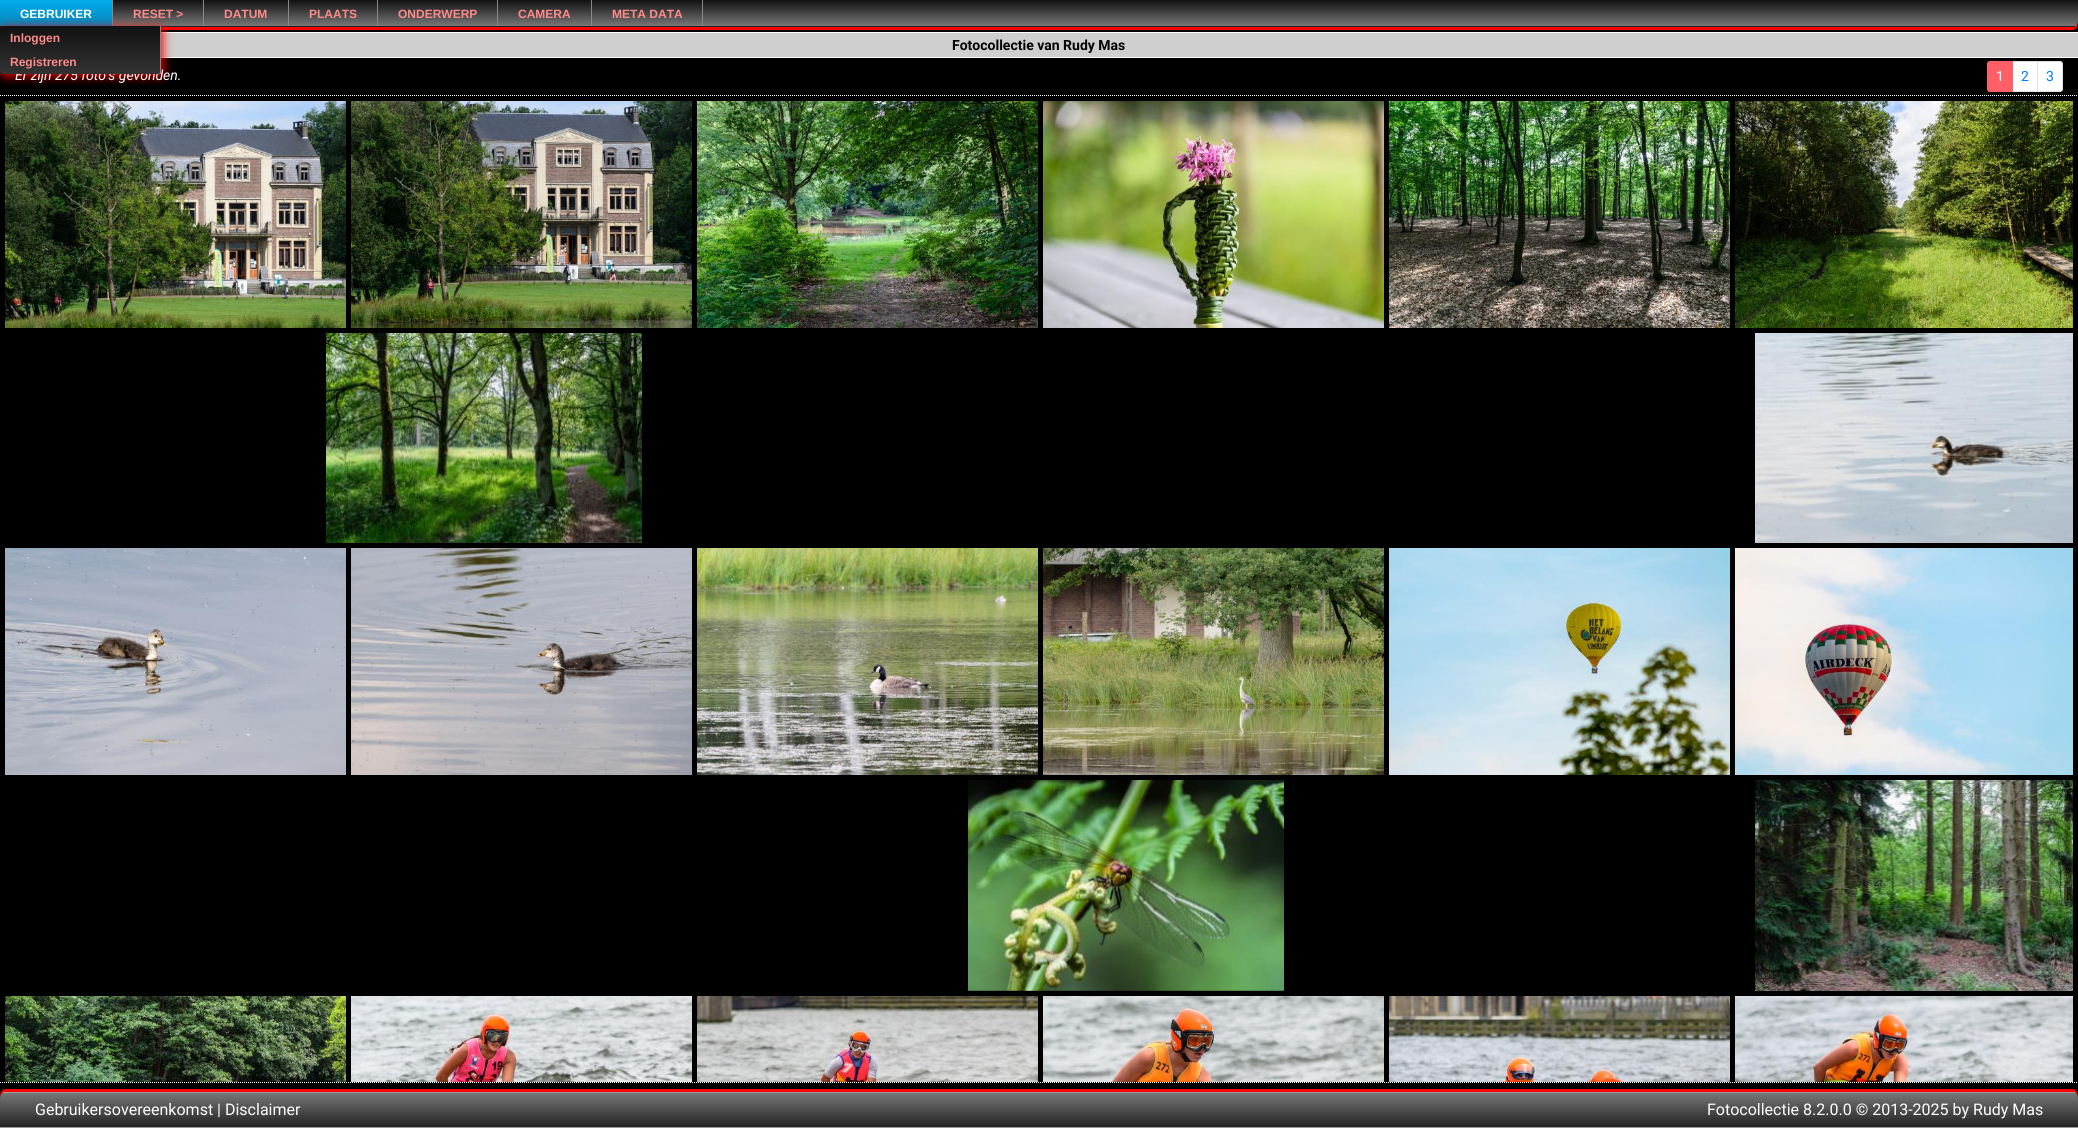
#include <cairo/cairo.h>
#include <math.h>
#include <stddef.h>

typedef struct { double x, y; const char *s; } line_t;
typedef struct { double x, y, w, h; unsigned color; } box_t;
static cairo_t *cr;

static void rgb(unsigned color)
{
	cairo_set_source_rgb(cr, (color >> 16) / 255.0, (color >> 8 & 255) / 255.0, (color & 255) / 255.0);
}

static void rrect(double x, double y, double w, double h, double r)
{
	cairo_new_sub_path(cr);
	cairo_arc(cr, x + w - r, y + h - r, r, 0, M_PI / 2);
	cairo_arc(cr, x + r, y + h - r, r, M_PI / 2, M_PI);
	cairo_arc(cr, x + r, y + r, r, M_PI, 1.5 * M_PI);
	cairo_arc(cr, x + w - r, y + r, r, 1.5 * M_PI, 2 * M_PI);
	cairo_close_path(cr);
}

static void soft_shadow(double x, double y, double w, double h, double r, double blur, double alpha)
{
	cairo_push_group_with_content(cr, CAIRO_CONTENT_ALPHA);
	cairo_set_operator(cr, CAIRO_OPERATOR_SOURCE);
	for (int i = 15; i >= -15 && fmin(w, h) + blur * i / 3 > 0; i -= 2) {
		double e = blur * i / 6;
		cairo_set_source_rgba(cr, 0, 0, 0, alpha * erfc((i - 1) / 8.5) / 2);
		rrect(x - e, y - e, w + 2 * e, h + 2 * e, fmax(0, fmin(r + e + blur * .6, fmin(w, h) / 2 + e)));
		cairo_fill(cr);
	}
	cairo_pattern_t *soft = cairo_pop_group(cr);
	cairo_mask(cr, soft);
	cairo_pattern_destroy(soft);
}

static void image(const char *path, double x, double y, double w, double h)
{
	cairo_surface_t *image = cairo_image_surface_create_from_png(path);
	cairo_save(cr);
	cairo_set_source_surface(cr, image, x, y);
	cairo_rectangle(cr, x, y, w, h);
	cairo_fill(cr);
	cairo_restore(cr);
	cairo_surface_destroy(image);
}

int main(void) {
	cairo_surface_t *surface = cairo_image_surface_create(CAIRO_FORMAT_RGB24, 2078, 1128);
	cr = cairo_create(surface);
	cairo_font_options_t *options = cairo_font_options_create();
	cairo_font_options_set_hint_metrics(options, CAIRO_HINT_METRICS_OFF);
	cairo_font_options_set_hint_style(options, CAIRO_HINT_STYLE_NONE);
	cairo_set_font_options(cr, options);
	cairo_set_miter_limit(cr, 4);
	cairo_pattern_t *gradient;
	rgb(0x000000);
	cairo_paint(cr);
	rgb(0xff0000);
	cairo_new_path(cr);
	cairo_move_to(cr, 0, 21);
	cairo_curve_to(cr, 0, 25, 1, 30, 6, 30);
	cairo_line_to(cr, 2072, 30);
	cairo_curve_to(cr, 2077, 30, 2078, 25, 2078, 21);
	cairo_curve_to(cr, 2078, 24, 2075, 27, 2072, 27);
	cairo_line_to(cr, 6, 27);
	cairo_curve_to(cr, 3, 27, 0, 24, 0, 21);
	cairo_close_path(cr);
	cairo_fill(cr);
	cairo_save(cr);
	cairo_new_path(cr);
	cairo_move_to(cr, 0, 0);
	cairo_line_to(cr, 2078, 0);
	cairo_line_to(cr, 2078, 21);
	cairo_curve_to(cr, 2078, 24.5, 2075.5, 27, 2072, 27);
	cairo_line_to(cr, 6, 27);
	cairo_curve_to(cr, 2.5, 27, 0, 24.5, 0, 21);
	cairo_close_path(cr);
	cairo_clip(cr);
	gradient = cairo_pattern_create_linear(1039, 0, 1039, 26);
	cairo_pattern_add_color_stop_rgba(gradient, 0, 0.067, 0.067, 0.067, 1);
	cairo_pattern_add_color_stop_rgba(gradient, 1, 0.467, 0.467, 0.467, 1);
	cairo_set_source(cr, gradient);
	cairo_pattern_destroy(gradient);
	cairo_rectangle(cr, 113, 0, 1965, 26);
	cairo_fill(cr);
	cairo_restore(cr);
	rgb(0x222222);
	cairo_rectangle(cr, 158, 26, 1917, 1);
	cairo_fill(cr);
	rgb(0x888888);
	cairo_rectangle(cr, 112, 0, 1, 26);
	cairo_fill(cr);
	gradient = cairo_pattern_create_linear(56, 0, 56, 26);
	cairo_pattern_add_color_stop_rgba(gradient, 0, 0.016, 0.675, 0.925, 1);
	cairo_pattern_add_color_stop_rgba(gradient, 1, 0.004, 0.525, 0.729, 1);
	cairo_set_source(cr, gradient);
	cairo_pattern_destroy(gradient);
	cairo_rectangle(cr, 0, 0, 112, 26);
	cairo_fill(cr);
	{
		static const box_t items[] = {
			{161, 33, 1917, 24, 0xcfcfcf},
			{161, 32, 1917, 1, 0xffffff},
			{161, 57, 1917, 1, 0xffffff},
		};
		for (size_t i = 0; i < sizeof items / sizeof *items; i++) {
			rgb(items[i].color);
			cairo_rectangle(cr, items[i].x, items[i].y, items[i].w, items[i].h);
			cairo_fill(cr);
		}
	}
	rgb(0xff0000);
	soft_shadow(2, 28, 161, 48, 3, 5, 1);
	{
		static const box_t items[] = {
			{203, 0, 1, 26, 0x888888},
			{288, 0, 1, 26, 0x888888},
			{377, 0, 1, 26, 0x888888},
			{497, 0, 1, 26, 0x888888},
			{591, 0, 1, 26, 0x888888},
			{702, 0, 1, 26, 0x888888},
		};
		for (size_t i = 0; i < sizeof items / sizeof *items; i++) {
			rgb(items[i].color);
			cairo_rectangle(cr, items[i].x, items[i].y, items[i].w, items[i].h);
			cairo_fill(cr);
		}
	}
	rgb(0xffffff);
	cairo_rectangle(cr, 2012.5, 61.5, 25, 30);
	cairo_fill_preserve(cr);
	rgb(0xdee2e6);
	cairo_set_line_width(cr, 1);
	cairo_stroke(cr);
	rgb(0xff5f66);
	cairo_new_path(cr);
	cairo_move_to(cr, 1990, 61.5);
	cairo_line_to(cr, 2012.5, 61.5);
	cairo_line_to(cr, 2012.5, 91.5);
	cairo_line_to(cr, 1990, 91.5);
	cairo_curve_to(cr, 1988.5, 91.5, 1987.5, 90.5, 1987.5, 89);
	cairo_line_to(cr, 1987.5, 64);
	cairo_curve_to(cr, 1987.5, 62.5, 1988.5, 61.5, 1990, 61.5);
	cairo_close_path(cr);
	cairo_fill_preserve(cr);
	cairo_stroke(cr);
	rgb(0xffffff);
	cairo_new_path(cr);
	cairo_move_to(cr, 2037.5, 61.5);
	cairo_line_to(cr, 2060, 61.5);
	cairo_curve_to(cr, 2061.5, 61.5, 2062.5, 62.5, 2062.5, 64);
	cairo_line_to(cr, 2062.5, 89);
	cairo_curve_to(cr, 2062.5, 90.5, 2061.5, 91.5, 2060, 91.5);
	cairo_line_to(cr, 2037.5, 91.5);
	cairo_close_path(cr);
	cairo_fill_preserve(cr);
	rgb(0xdee2e6);
	cairo_stroke(cr);
	cairo_new_path(cr);
	cairo_move_to(cr, 0, 95.5);
	cairo_line_to(cr, 2078, 95.5);
	rgb(0xffffff);
	cairo_set_dash(cr, (double[]){1, 1}, 2, 0);
	cairo_stroke(cr);
	cairo_new_path(cr);
	cairo_move_to(cr, 0, 1082.5);
	cairo_line_to(cr, 2078, 1082.5);
	cairo_stroke(cr);
	image("img/1.png", 5, 101, 341, 227);
	image("img/2.png", 351, 101, 341, 227);
	image("img/3.png", 697, 101, 341, 227);
	image("img/4.png", 1043, 101, 341, 227);
	image("img/5.png", 1389, 101, 341, 227);
	image("img/6.png", 1735, 101, 338, 227);
	image("img/7.png", 326, 333, 316, 210);
	image("img/8.png", 1755, 333, 318, 210);
	image("img/9.png", 5, 548, 341, 227);
	image("img/10.png", 351, 548, 341, 227);
	image("img/11.png", 697, 548, 341, 227);
	image("img/12.png", 1043, 548, 341, 227);
	image("img/13.png", 1389, 548, 341, 227);
	image("img/14.png", 1735, 548, 338, 227);
	image("img/15.png", 968, 780, 316, 211);
	image("img/16.png", 1755, 780, 318, 211);
	image("img/17.png", 5, 996, 341, 86);
	image("img/18.png", 351, 996, 341, 86);
	image("img/19.png", 697, 996, 341, 86);
	image("img/20.png", 1043, 996, 341, 86);
	image("img/21.png", 1389, 996, 341, 86);
	image("img/22.png", 1735, 996, 338, 86);
	rgb(0xff0000);
	cairo_new_path(cr);
	cairo_move_to(cr, 6, 1089);
	cairo_curve_to(cr, 1, 1089, 0, 1094, 0, 1098);
	cairo_curve_to(cr, 0, 1095, 3, 1092, 6, 1092);
	cairo_line_to(cr, 2072, 1092);
	cairo_curve_to(cr, 2075, 1092, 2078, 1095, 2078, 1098);
	cairo_curve_to(cr, 2078, 1094, 2077, 1089, 2072, 1089);
	cairo_close_path(cr);
	cairo_fill(cr);
	cairo_save(cr);
	cairo_new_path(cr);
	cairo_move_to(cr, 6, 1092);
	cairo_line_to(cr, 2072, 1092);
	cairo_curve_to(cr, 2075.5, 1092, 2078, 1094.5, 2078, 1098);
	cairo_line_to(cr, 2078, 1128);
	cairo_line_to(cr, 0, 1128);
	cairo_line_to(cr, 0, 1098);
	cairo_curve_to(cr, 0, 1094.5, 2.5, 1092, 6, 1092);
	cairo_close_path(cr);
	cairo_clip(cr);
	gradient = cairo_pattern_create_linear(1039, 1093, 1039, 1127);
	cairo_pattern_add_color_stop_rgba(gradient, 0, 0.467, 0.467, 0.467, 1);
	cairo_pattern_add_color_stop_rgba(gradient, 1, 0.133, 0.133, 0.133, 1);
	cairo_set_source(cr, gradient);
	cairo_pattern_destroy(gradient);
	cairo_rectangle(cr, 0, 1093, 2078, 34);
	cairo_fill(cr);
	cairo_restore(cr);
	rgb(0x999999);
	cairo_rectangle(cr, 3, 1092, 2072, 1);
	cairo_fill(cr);
	cairo_rectangle(cr, 0, 1127, 2078, 1);
	cairo_fill(cr);
	cairo_select_font_face(cr, "Liberation Sans", CAIRO_FONT_SLANT_NORMAL, CAIRO_FONT_WEIGHT_BOLD);
	cairo_set_font_size(cr, 12);
	rgb(0xffffff);
	cairo_move_to(cr, 20, 18);
	cairo_show_text(cr, "GEBRUIKER");
	rgb(0xff8a8a);
	{
		static const line_t items[] = {
			{133, 18, "RESET >"},
			{224, 18, "DATUM"},
			{309, 18, "PLAATS"},
			{398, 18, "ONDERWERP"},
			{518, 18, "CAMERA"},
			{612, 18, "META DATA"},
		};
		for (size_t i = 0; i < sizeof items / sizeof *items; i++) {
			cairo_move_to(cr, items[i].x, items[i].y);
			cairo_show_text(cr, items[i].s);
		}
	}
	cairo_select_font_face(cr, "Roboto", CAIRO_FONT_SLANT_NORMAL, CAIRO_FONT_WEIGHT_BOLD);
	cairo_set_font_size(cr, 14);
	rgb(0x000000);
	cairo_move_to(cr, 952, 50);
	cairo_show_text(cr, "Fotocollectie van Rudy Mas");
	cairo_select_font_face(cr, "Roboto", CAIRO_FONT_SLANT_ITALIC, CAIRO_FONT_WEIGHT_NORMAL);
	rgb(0xffffff);
	cairo_move_to(cr, 15, 80);
	cairo_show_text(cr, "Er zijn 275 foto's gevonden.");
	gradient = cairo_pattern_create_linear(81, 26, 81, 74);
	cairo_pattern_add_color_stop_rgba(gradient, 0, 0.067, 0.067, 0.067, 1);
	cairo_pattern_add_color_stop_rgba(gradient, 1, 0.2, 0.2, 0.2, 1);
	cairo_set_source(cr, gradient);
	cairo_pattern_destroy(gradient);
	rrect(0, 26, 161, 48, 3);
	cairo_fill(cr);
	cairo_select_font_face(cr, "Liberation Sans", CAIRO_FONT_SLANT_NORMAL, CAIRO_FONT_WEIGHT_BOLD);
	cairo_set_font_size(cr, 12);
	rgb(0xff8a8a);
	cairo_move_to(cr, 10, 66);
	cairo_show_text(cr, "Registreren");
	cairo_move_to(cr, 10, 42);
	cairo_show_text(cr, "Inloggen");
	rgb(0x888888);
	cairo_rectangle(cr, 160, 26, 1, 48);
	cairo_fill(cr);
	cairo_select_font_face(cr, "Roboto", CAIRO_FONT_SLANT_NORMAL, CAIRO_FONT_WEIGHT_NORMAL);
	cairo_set_font_size(cr, 14);
	rgb(0xffffff);
	cairo_move_to(cr, 1996, 81);
	cairo_show_text(cr, "1");
	rgb(0x007bff);
	cairo_move_to(cr, 2021, 81);
	cairo_show_text(cr, "2");
	cairo_move_to(cr, 2046, 81);
	cairo_show_text(cr, "3");
	cairo_set_font_size(cr, 16);
	rgb(0xffffff);
	cairo_move_to(cr, 35, 1115);
	cairo_show_text(cr, "Gebruikersovereenkomst | Disclaimer");
	cairo_move_to(cr, 1707, 1115);
	cairo_show_text(cr, "Fotocollectie 8.2.0.0 © 2013-2025 by Rudy Mas");
	cairo_surface_write_to_png(surface, "page.png");
	cairo_font_options_destroy(options);
	cairo_destroy(cr);
	cairo_surface_destroy(surface);
	return 0;
}
